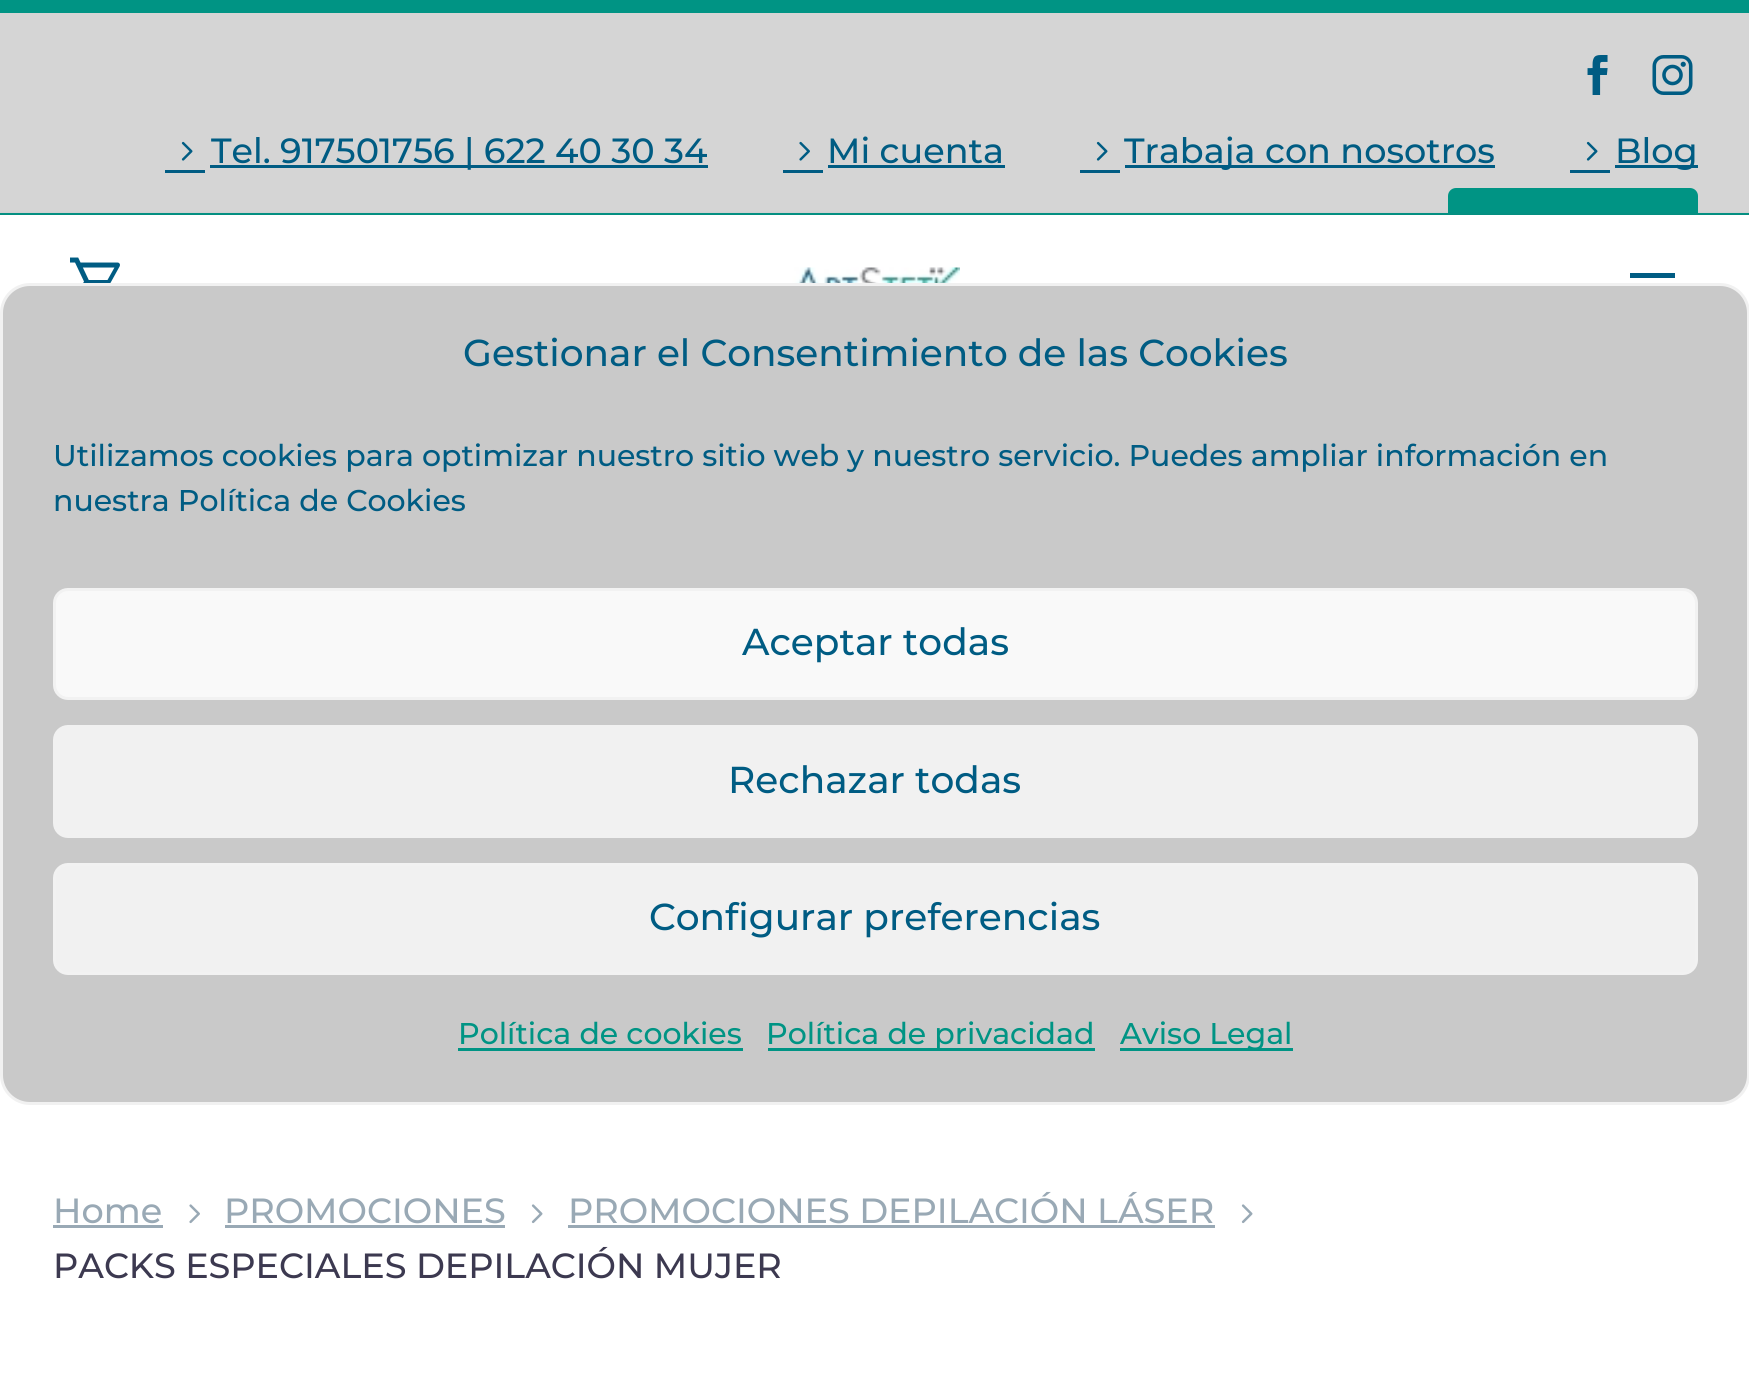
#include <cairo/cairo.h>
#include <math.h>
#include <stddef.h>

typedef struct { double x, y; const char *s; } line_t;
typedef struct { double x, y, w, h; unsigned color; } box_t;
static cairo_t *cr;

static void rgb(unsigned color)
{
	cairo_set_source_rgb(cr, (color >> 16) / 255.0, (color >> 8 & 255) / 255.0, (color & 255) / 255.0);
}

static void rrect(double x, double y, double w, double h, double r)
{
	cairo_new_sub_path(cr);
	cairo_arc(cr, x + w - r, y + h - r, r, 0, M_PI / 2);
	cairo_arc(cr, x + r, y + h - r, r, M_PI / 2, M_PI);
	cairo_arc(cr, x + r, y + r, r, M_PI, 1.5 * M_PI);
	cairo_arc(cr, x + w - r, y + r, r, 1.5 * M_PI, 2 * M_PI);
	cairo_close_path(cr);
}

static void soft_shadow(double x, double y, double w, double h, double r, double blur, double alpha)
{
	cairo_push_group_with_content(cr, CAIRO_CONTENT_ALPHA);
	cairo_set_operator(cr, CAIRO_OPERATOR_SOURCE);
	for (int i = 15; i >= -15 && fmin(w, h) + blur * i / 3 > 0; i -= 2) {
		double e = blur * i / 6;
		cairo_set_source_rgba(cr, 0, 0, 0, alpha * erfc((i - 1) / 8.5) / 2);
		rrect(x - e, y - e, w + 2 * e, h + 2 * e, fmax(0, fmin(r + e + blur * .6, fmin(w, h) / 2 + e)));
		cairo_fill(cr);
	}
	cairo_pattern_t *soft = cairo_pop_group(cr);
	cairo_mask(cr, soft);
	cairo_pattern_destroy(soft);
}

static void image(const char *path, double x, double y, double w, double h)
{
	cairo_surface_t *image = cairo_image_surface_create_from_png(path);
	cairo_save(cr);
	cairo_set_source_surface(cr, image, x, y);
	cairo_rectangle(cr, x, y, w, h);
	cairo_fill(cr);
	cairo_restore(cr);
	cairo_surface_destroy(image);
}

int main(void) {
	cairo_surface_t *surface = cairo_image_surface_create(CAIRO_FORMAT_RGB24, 1749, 1385);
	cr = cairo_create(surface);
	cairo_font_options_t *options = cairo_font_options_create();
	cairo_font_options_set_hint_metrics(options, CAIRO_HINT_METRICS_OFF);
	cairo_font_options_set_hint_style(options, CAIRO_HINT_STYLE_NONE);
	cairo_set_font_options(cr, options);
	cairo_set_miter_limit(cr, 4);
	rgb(0xd5d5d5);
	cairo_paint(cr);
	rgb(0x009484);
	cairo_rectangle(cr, 0, 0, 1749, 13);
	cairo_fill(cr);
	cairo_rectangle(cr, 0, 213, 1749, 2);
	cairo_fill(cr);
	image("img/1.png", 1587, 55, 21, 40);
	image("img/2.png", 1652, 55, 41, 40);
	image("img/3.png", 181, 141, 12, 20);
	rgb(0x005c83);
	cairo_rectangle(cr, 210, 165, 498, 3);
	cairo_fill(cr);
	cairo_rectangle(cr, 165, 170, 40, 3);
	cairo_fill(cr);
	image("img/4.png", 799, 141, 11, 20);
	cairo_rectangle(cr, 828, 165, 177, 3);
	cairo_fill(cr);
	cairo_rectangle(cr, 783, 170, 40, 3);
	cairo_fill(cr);
	image("img/3.png", 1096, 141, 12, 20);
	cairo_rectangle(cr, 1125, 165, 370, 3);
	cairo_fill(cr);
	cairo_rectangle(cr, 1080, 170, 40, 3);
	cairo_fill(cr);
	image("img/3.png", 1586, 141, 12, 20);
	cairo_rectangle(cr, 1615, 165, 83, 3);
	cairo_fill(cr);
	cairo_rectangle(cr, 1570, 170, 40, 3);
	cairo_fill(cr);
	rgb(0x009484);
	rrect(1448, 188, 250, 75, 8);
	cairo_fill(cr);
	rgb(0x384554);
	soft_shadow(0, 215, 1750, 138, 0, 2.5, 0.2);
	rgb(0xffffff);
	cairo_rectangle(cr, 0, 215, 1749, 98);
	cairo_fill(cr);
	image("img/5.png", 70, 257, 50, 26);
	image("img/6.png", 792, 267, 168, 16);
	{
		static const box_t items[] = {
			{1630, 273, 45, 5, 0x005c83},
			{0, 1075, 1749, 310, 0xffffff},
			{53, 1225, 110, 3, 0x99a9b5},
		};
		for (size_t i = 0; i < sizeof items / sizeof *items; i++) {
			rgb(items[i].color);
			cairo_rectangle(cr, items[i].x, items[i].y, items[i].w, items[i].h);
			cairo_fill(cr);
		}
	}
	image("img/7.png", 189, 1204, 11, 20);
	cairo_rectangle(cr, 225, 1225, 280, 3);
	cairo_fill(cr);
	image("img/8.png", 531, 1204, 12, 20);
	cairo_rectangle(cr, 568, 1225, 647, 3);
	cairo_fill(cr);
	image("img/8.png", 1241, 1204, 12, 20);
	rgb(0xc9c9c9);
	rrect(1.5, 284.5, 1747, 819, 28.5);
	cairo_fill_preserve(cr);
	rgb(0xf1f1f1);
	cairo_set_line_width(cr, 3);
	cairo_stroke(cr);
	rgb(0xf9f9f9);
	rrect(54.5, 589.5, 1642, 109, 13.5);
	cairo_fill_preserve(cr);
	rgb(0xf2f2f2);
	cairo_stroke(cr);
	rgb(0xf1f1f1);
	rrect(54.5, 726.5, 1642, 110, 13.5);
	cairo_fill_preserve(cr);
	cairo_stroke(cr);
	rrect(54.5, 864.5, 1642, 109, 13.5);
	cairo_fill_preserve(cr);
	rgb(0xf2f2f2);
	cairo_stroke(cr);
	{
		static const box_t items[] = {
			{458, 1048, 285, 3, 0x009484},
			{768, 1048, 327, 3, 0x009484},
			{1120, 1048, 173, 3, 0x009484},
		};
		for (size_t i = 0; i < sizeof items / sizeof *items; i++) {
			rgb(items[i].color);
			cairo_rectangle(cr, items[i].x, items[i].y, items[i].w, items[i].h);
			cairo_fill(cr);
		}
	}
	cairo_select_font_face(cr, "Montserrat Medium", CAIRO_FONT_SLANT_NORMAL, CAIRO_FONT_WEIGHT_NORMAL);
	cairo_set_font_size(cr, 35);
	rgb(0x005c83);
	{
		static const line_t items[] = {
			{211, 163, "Tel. 917501756 | 622 40 30 34"},
			{827, 163, "Mi cuenta"},
			{1124, 163, "Trabaja con nosotros"},
			{1615, 163, "Blog"},
		};
		for (size_t i = 0; i < sizeof items / sizeof *items; i++) {
			cairo_move_to(cr, items[i].x, items[i].y);
			cairo_show_text(cr, items[i].s);
		}
	}
	rgb(0x99a9b5);
	{
		static const line_t items[] = {
			{53, 1223, "Home"},
			{224, 1223, "PROMOCIONES"},
			{568, 1223, "PROMOCIONES DEPILACIÓN LÁSER"},
		};
		for (size_t i = 0; i < sizeof items / sizeof *items; i++) {
			cairo_move_to(cr, items[i].x, items[i].y);
			cairo_show_text(cr, items[i].s);
		}
	}
	rgb(0x3c3950);
	cairo_move_to(cr, 53, 1278);
	cairo_show_text(cr, "PACKS ESPECIALES DEPILACIÓN MUJER");
	cairo_set_font_size(cr, 37.5);
	rgb(0x005c83);
	cairo_move_to(cr, 463, 366);
	cairo_show_text(cr, "Gestionar el Consentimiento de las Cookies");
	cairo_set_font_size(cr, 30);
	cairo_move_to(cr, 53, 466);
	cairo_show_text(cr, "Utilizamos cookies para optimizar nuestro sitio web y nuestro servicio. Puedes ampliar información en");
	cairo_move_to(cr, 53, 511);
	cairo_show_text(cr, "nuestra Política de Cookies");
	cairo_set_font_size(cr, 37.5);
	{
		static const line_t items[] = {
			{742, 655, "Aceptar todas"},
			{728, 793, "Rechazar todas"},
			{649, 930, "Configurar preferencias"},
		};
		for (size_t i = 0; i < sizeof items / sizeof *items; i++) {
			cairo_move_to(cr, items[i].x, items[i].y);
			cairo_show_text(cr, items[i].s);
		}
	}
	cairo_set_font_size(cr, 30);
	rgb(0x009484);
	{
		static const line_t items[] = {
			{458, 1044, "Política de cookies"},
			{766, 1044, "Política de privacidad"},
			{1120, 1044, "Aviso Legal"},
		};
		for (size_t i = 0; i < sizeof items / sizeof *items; i++) {
			cairo_move_to(cr, items[i].x, items[i].y);
			cairo_show_text(cr, items[i].s);
		}
	}
	cairo_surface_write_to_png(surface, "page.png");
	cairo_font_options_destroy(options);
	cairo_destroy(cr);
	cairo_surface_destroy(surface);
	return 0;
}
